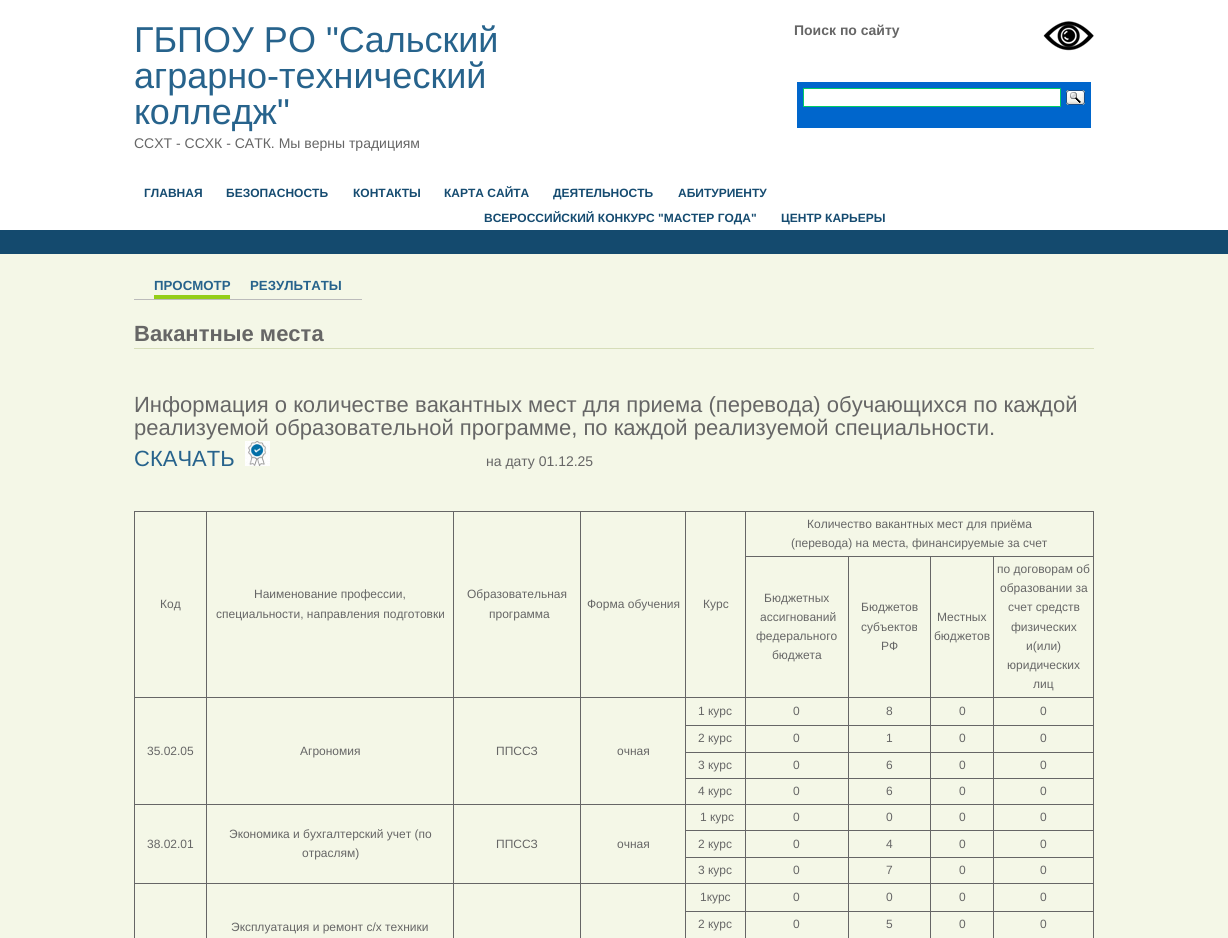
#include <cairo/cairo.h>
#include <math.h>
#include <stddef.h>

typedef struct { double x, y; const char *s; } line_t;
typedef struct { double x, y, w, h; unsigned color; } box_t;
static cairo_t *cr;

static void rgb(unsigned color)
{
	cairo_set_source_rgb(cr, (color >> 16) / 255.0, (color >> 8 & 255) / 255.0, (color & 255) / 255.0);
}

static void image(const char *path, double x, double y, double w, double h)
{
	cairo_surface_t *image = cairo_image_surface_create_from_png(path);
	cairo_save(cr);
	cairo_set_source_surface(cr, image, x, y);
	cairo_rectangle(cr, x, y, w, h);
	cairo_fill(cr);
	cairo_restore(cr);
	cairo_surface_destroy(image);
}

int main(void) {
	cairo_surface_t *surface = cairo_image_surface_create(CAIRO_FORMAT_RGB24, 1228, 938);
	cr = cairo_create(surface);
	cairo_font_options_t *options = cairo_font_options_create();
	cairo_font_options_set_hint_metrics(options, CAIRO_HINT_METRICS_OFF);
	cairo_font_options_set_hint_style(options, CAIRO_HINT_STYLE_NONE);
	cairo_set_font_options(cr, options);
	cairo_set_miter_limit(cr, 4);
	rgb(0xffffff);
	cairo_paint(cr);
	image("img/1.png", 1043, 21, 51, 30);
	rgb(0x0066cc);
	cairo_rectangle(cr, 797, 82, 294, 46);
	cairo_fill(cr);
	rgb(0xffffff);
	cairo_rectangle(cr, 803.5, 88.5, 257, 18);
	cairo_fill_preserve(cr);
	rgb(0x00cc66);
	cairo_set_line_width(cr, 1);
	cairo_stroke(cr);
	image("img/2.png", 1066, 90, 19, 15);
	{
		static const box_t items[] = {
			{0, 230, 1228, 24, 0x144a6e},
			{0, 254, 1228, 684, 0xf4f7e7},
			{134, 299, 228, 1, 0xbbbbbb},
			{154, 295, 76, 4, 0x94ce18},
			{134, 348, 960, 1, 0xd6ddb9},
		};
		for (size_t i = 0; i < sizeof items / sizeof *items; i++) {
			rgb(items[i].color);
			cairo_rectangle(cr, items[i].x, items[i].y, items[i].w, items[i].h);
			cairo_fill(cr);
		}
	}
	image("img/3.png", 245, 441, 25, 25);
	{
		static const box_t items[] = {
			{745, 511, 349, 1, 0x666666},
			{993, 556, 101, 1, 0x666666},
			{993, 697, 101, 1, 0x666666},
			{993, 725, 101, 1, 0x666666},
			{993, 752, 101, 1, 0x666666},
			{993, 778, 101, 1, 0x666666},
			{993, 804, 101, 1, 0x666666},
			{993, 830, 101, 1, 0x666666},
			{993, 857, 101, 1, 0x666666},
			{993, 883, 101, 1, 0x666666},
			{993, 911, 101, 1, 0x666666},
			{1093, 911, 1, 27, 0x666666},
			{1093, 883, 1, 29, 0x666666},
			{1093, 857, 1, 27, 0x666666},
			{1093, 830, 1, 28, 0x666666},
			{1093, 804, 1, 27, 0x666666},
			{1093, 778, 1, 27, 0x666666},
			{1093, 752, 1, 27, 0x666666},
			{1093, 725, 1, 28, 0x666666},
			{1093, 697, 1, 29, 0x666666},
			{1093, 556, 1, 142, 0x666666},
			{1093, 511, 1, 46, 0x666666},
			{993, 911, 1, 27, 0x666666},
			{930, 911, 64, 1, 0x666666},
			{993, 883, 1, 29, 0x666666},
			{930, 883, 64, 1, 0x666666},
			{993, 857, 1, 27, 0x666666},
			{930, 857, 64, 1, 0x666666},
			{993, 830, 1, 28, 0x666666},
			{930, 830, 64, 1, 0x666666},
			{993, 804, 1, 27, 0x666666},
			{930, 804, 64, 1, 0x666666},
			{993, 778, 1, 27, 0x666666},
			{930, 778, 64, 1, 0x666666},
			{993, 752, 1, 27, 0x666666},
			{930, 752, 64, 1, 0x666666},
			{993, 725, 1, 28, 0x666666},
			{930, 725, 64, 1, 0x666666},
			{993, 697, 1, 29, 0x666666},
			{930, 697, 64, 1, 0x666666},
			{993, 556, 1, 142, 0x666666},
			{930, 556, 64, 1, 0x666666},
			{930, 911, 1, 27, 0x666666},
			{848, 911, 83, 1, 0x666666},
			{930, 883, 1, 29, 0x666666},
			{848, 883, 83, 1, 0x666666},
			{930, 857, 1, 27, 0x666666},
			{848, 857, 83, 1, 0x666666},
			{930, 830, 1, 28, 0x666666},
			{848, 830, 83, 1, 0x666666},
			{930, 804, 1, 27, 0x666666},
			{848, 804, 83, 1, 0x666666},
			{930, 778, 1, 27, 0x666666},
			{848, 778, 83, 1, 0x666666},
			{930, 752, 1, 27, 0x666666},
			{848, 752, 83, 1, 0x666666},
			{930, 725, 1, 28, 0x666666},
			{848, 725, 83, 1, 0x666666},
			{930, 697, 1, 29, 0x666666},
			{848, 697, 83, 1, 0x666666},
			{930, 556, 1, 142, 0x666666},
			{848, 556, 83, 1, 0x666666},
			{848, 911, 1, 27, 0x666666},
			{745, 911, 104, 1, 0x666666},
			{848, 883, 1, 29, 0x666666},
			{745, 883, 104, 1, 0x666666},
			{848, 857, 1, 27, 0x666666},
			{745, 857, 104, 1, 0x666666},
			{848, 830, 1, 28, 0x666666},
			{745, 830, 104, 1, 0x666666},
			{848, 804, 1, 27, 0x666666},
			{745, 804, 104, 1, 0x666666},
			{848, 778, 1, 27, 0x666666},
			{745, 778, 104, 1, 0x666666},
			{848, 752, 1, 27, 0x666666},
			{745, 752, 104, 1, 0x666666},
			{848, 725, 1, 28, 0x666666},
			{745, 725, 104, 1, 0x666666},
			{848, 697, 1, 29, 0x666666},
			{745, 697, 104, 1, 0x666666},
			{848, 556, 1, 142, 0x666666},
			{745, 556, 104, 1, 0x666666},
			{745, 911, 1, 27, 0x666666},
			{685, 911, 61, 1, 0x666666},
			{745, 883, 1, 29, 0x666666},
			{685, 883, 61, 1, 0x666666},
			{745, 857, 1, 27, 0x666666},
			{685, 857, 61, 1, 0x666666},
			{745, 830, 1, 28, 0x666666},
			{685, 830, 61, 1, 0x666666},
			{745, 804, 1, 27, 0x666666},
			{685, 804, 61, 1, 0x666666},
			{745, 778, 1, 27, 0x666666},
			{685, 778, 61, 1, 0x666666},
			{745, 752, 1, 27, 0x666666},
			{685, 752, 61, 1, 0x666666},
			{745, 725, 1, 28, 0x666666},
			{685, 725, 61, 1, 0x666666},
			{745, 697, 1, 29, 0x666666},
			{685, 697, 61, 1, 0x666666},
			{745, 556, 1, 142, 0x666666},
			{745, 511, 1, 46, 0x666666},
			{685, 511, 61, 1, 0x666666},
			{685, 911, 1, 27, 0x666666},
			{685, 883, 1, 29, 0x666666},
			{580, 883, 106, 1, 0x666666},
			{685, 857, 1, 27, 0x666666},
			{685, 830, 1, 28, 0x666666},
			{685, 804, 1, 27, 0x666666},
			{580, 804, 106, 1, 0x666666},
			{685, 778, 1, 27, 0x666666},
			{685, 752, 1, 27, 0x666666},
			{685, 725, 1, 28, 0x666666},
			{685, 697, 1, 29, 0x666666},
			{580, 697, 106, 1, 0x666666},
			{685, 511, 1, 187, 0x666666},
			{580, 511, 106, 1, 0x666666},
			{580, 883, 1, 55, 0x666666},
			{453, 883, 128, 1, 0x666666},
			{580, 804, 1, 80, 0x666666},
			{453, 804, 128, 1, 0x666666},
			{580, 697, 1, 108, 0x666666},
			{453, 697, 128, 1, 0x666666},
			{580, 511, 1, 187, 0x666666},
			{453, 511, 128, 1, 0x666666},
			{453, 883, 1, 55, 0x666666},
			{206, 883, 248, 1, 0x666666},
			{453, 804, 1, 80, 0x666666},
			{206, 804, 248, 1, 0x666666},
			{453, 697, 1, 108, 0x666666},
			{206, 697, 248, 1, 0x666666},
			{453, 511, 1, 187, 0x666666},
			{206, 511, 248, 1, 0x666666},
			{206, 883, 1, 55, 0x666666},
			{134, 883, 73, 1, 0x666666},
			{206, 804, 1, 80, 0x666666},
			{134, 804, 73, 1, 0x666666},
			{206, 697, 1, 108, 0x666666},
			{134, 697, 73, 1, 0x666666},
			{206, 511, 1, 187, 0x666666},
			{134, 511, 73, 1, 0x666666},
			{134, 883, 1, 55, 0x666666},
			{134, 804, 1, 80, 0x666666},
			{134, 697, 1, 108, 0x666666},
			{134, 511, 1, 187, 0x666666},
		};
		for (size_t i = 0; i < sizeof items / sizeof *items; i++) {
			rgb(items[i].color);
			cairo_rectangle(cr, items[i].x, items[i].y, items[i].w, items[i].h);
			cairo_fill(cr);
		}
	}
	cairo_select_font_face(cr, "Liberation Sans", CAIRO_FONT_SLANT_NORMAL, CAIRO_FONT_WEIGHT_NORMAL);
	cairo_set_font_size(cr, 36);
	rgb(0x27638c);
	{
		static const line_t items[] = {
			{134, 52, "ГБПОУ РО \"Сальский"},
			{134, 88, "аграрно-технический"},
			{134, 124, "колледж\""},
		};
		for (size_t i = 0; i < sizeof items / sizeof *items; i++) {
			cairo_move_to(cr, items[i].x, items[i].y);
			cairo_show_text(cr, items[i].s);
		}
	}
	cairo_set_font_size(cr, 14);
	rgb(0x666666);
	cairo_move_to(cr, 134, 148);
	cairo_show_text(cr, "ССХТ - ССХК - САТК. Мы верны традициям");
	cairo_select_font_face(cr, "Liberation Sans", CAIRO_FONT_SLANT_NORMAL, CAIRO_FONT_WEIGHT_BOLD);
	cairo_move_to(cr, 794, 35);
	cairo_show_text(cr, "Поиск по сайту");
	cairo_set_font_size(cr, 12);
	rgb(0x154b70);
	{
		static const line_t items[] = {
			{144, 197, "ГЛАВНАЯ"},
			{226, 197, "БЕЗОПАСНОСТЬ"},
			{353, 197, "КОНТАКТЫ"},
			{444, 197, "КАРТА САЙТА"},
			{553, 197, "ДЕЯТЕЛЬНОСТЬ"},
			{678, 197, "АБИТУРИЕНТУ"},
			{484, 222, "ВСЕРОССИЙСКИЙ КОНКУРС \"МАСТЕР ГОДА\""},
			{781, 222, "ЦЕНТР КАРЬЕРЫ"},
		};
		for (size_t i = 0; i < sizeof items / sizeof *items; i++) {
			cairo_move_to(cr, items[i].x, items[i].y);
			cairo_show_text(cr, items[i].s);
		}
	}
	cairo_set_font_size(cr, 13.25);
	rgb(0x27638c);
	cairo_move_to(cr, 154, 290);
	cairo_show_text(cr, "ПРОСМОТР");
	cairo_move_to(cr, 250, 290);
	cairo_show_text(cr, "РЕЗУЛЬТАТЫ");
	cairo_set_font_size(cr, 22);
	rgb(0x666666);
	cairo_move_to(cr, 134, 341);
	cairo_show_text(cr, "Вакантные места");
	cairo_select_font_face(cr, "Liberation Sans", CAIRO_FONT_SLANT_NORMAL, CAIRO_FONT_WEIGHT_NORMAL);
	cairo_move_to(cr, 134, 412);
	cairo_show_text(cr, "Информация о количестве вакантных мест для приема (перевода) обучающихся по каждой");
	cairo_move_to(cr, 134, 435);
	cairo_show_text(cr, "реализуемой образовательной программе, по каждой реализуемой специальности.");
	rgb(0x27638c);
	cairo_move_to(cr, 134, 466);
	cairo_show_text(cr, "СКАЧАТЬ");
	cairo_set_font_size(cr, 14);
	rgb(0x666666);
	cairo_move_to(cr, 486, 466);
	cairo_show_text(cr, "на дату 01.12.25");
	cairo_set_font_size(cr, 12);
	{
		static const line_t items[] = {
			{807, 528, "Количество вакантных мест для приёма"},
			{791, 547, "(перевода) на места, финансируемые за счет"},
			{160, 608, "Код"},
			{254, 598, "Наименование профессии,"},
			{216, 618, "специальности, направления подготовки"},
			{467, 598, "Образовательная"},
			{489, 618, "программа"},
			{587, 608, "Форма обучения"},
			{703, 608, "Курс"},
			{764, 602, "Бюджетных"},
			{760, 621, "ассигнований"},
			{756, 640, "федерального"},
			{772, 659, "бюджета"},
			{861, 611, "Бюджетов"},
			{861, 631, "субъектов"},
			{881, 650, "РФ"},
			{937, 621, "Местных"},
			{934, 640, "бюджетов"},
			{997, 573, "по договорам об"},
			{1000, 592, "образовании за"},
			{1008, 611, "счет средств"},
			{1011, 631, "физических"},
			{1026, 650, "и(или)"},
			{1007, 669, "юридических"},
			{1033, 688, "лиц"},
			{698, 715, "1 курс"},
			{793, 715, "0"},
			{886, 715, "8"},
			{959, 715, "0"},
			{1040, 715, "0"},
			{147, 755, "35.02.05"},
			{300, 755, "Агрономия"},
			{496, 755, "ППССЗ"},
			{617, 755, "очная"},
			{698, 742, "2 курс"},
			{793, 742, "0"},
			{886, 742, "1"},
			{959, 742, "0"},
			{1040, 742, "0"},
			{698, 769, "3 курс"},
			{793, 769, "0"},
			{886, 769, "6"},
			{959, 769, "0"},
			{1040, 769, "0"},
			{698, 795, "4 курс"},
			{793, 795, "0"},
			{886, 795, "6"},
			{959, 795, "0"},
			{1040, 795, "0"},
			{700, 821, "1 курс"},
			{793, 821, "0"},
			{886, 821, "0"},
			{959, 821, "0"},
			{1040, 821, "0"},
			{147, 848, "38.02.01"},
			{229, 838, "Экономика и бухгалтерский учет (по"},
			{302, 857, "отраслям)"},
			{496, 848, "ППССЗ"},
			{617, 848, "очная"},
			{698, 848, "2 курс"},
			{793, 848, "0"},
			{886, 848, "4"},
			{959, 848, "0"},
			{1040, 848, "0"},
			{698, 874, "3 курс"},
			{793, 874, "0"},
			{886, 874, "7"},
			{959, 874, "0"},
			{1040, 874, "0"},
			{700, 901, "1курс"},
			{793, 901, "0"},
			{886, 901, "0"},
			{959, 901, "0"},
			{1040, 901, "0"},
			{231, 931, "Эксплуатация и ремонт с/х техники"},
			{698, 928, "2 курс"},
			{793, 928, "0"},
			{886, 928, "5"},
			{959, 928, "0"},
			{1040, 928, "0"},
		};
		for (size_t i = 0; i < sizeof items / sizeof *items; i++) {
			cairo_move_to(cr, items[i].x, items[i].y);
			cairo_show_text(cr, items[i].s);
		}
	}
	cairo_surface_write_to_png(surface, "page.png");
	cairo_font_options_destroy(options);
	cairo_destroy(cr);
	cairo_surface_destroy(surface);
	return 0;
}
